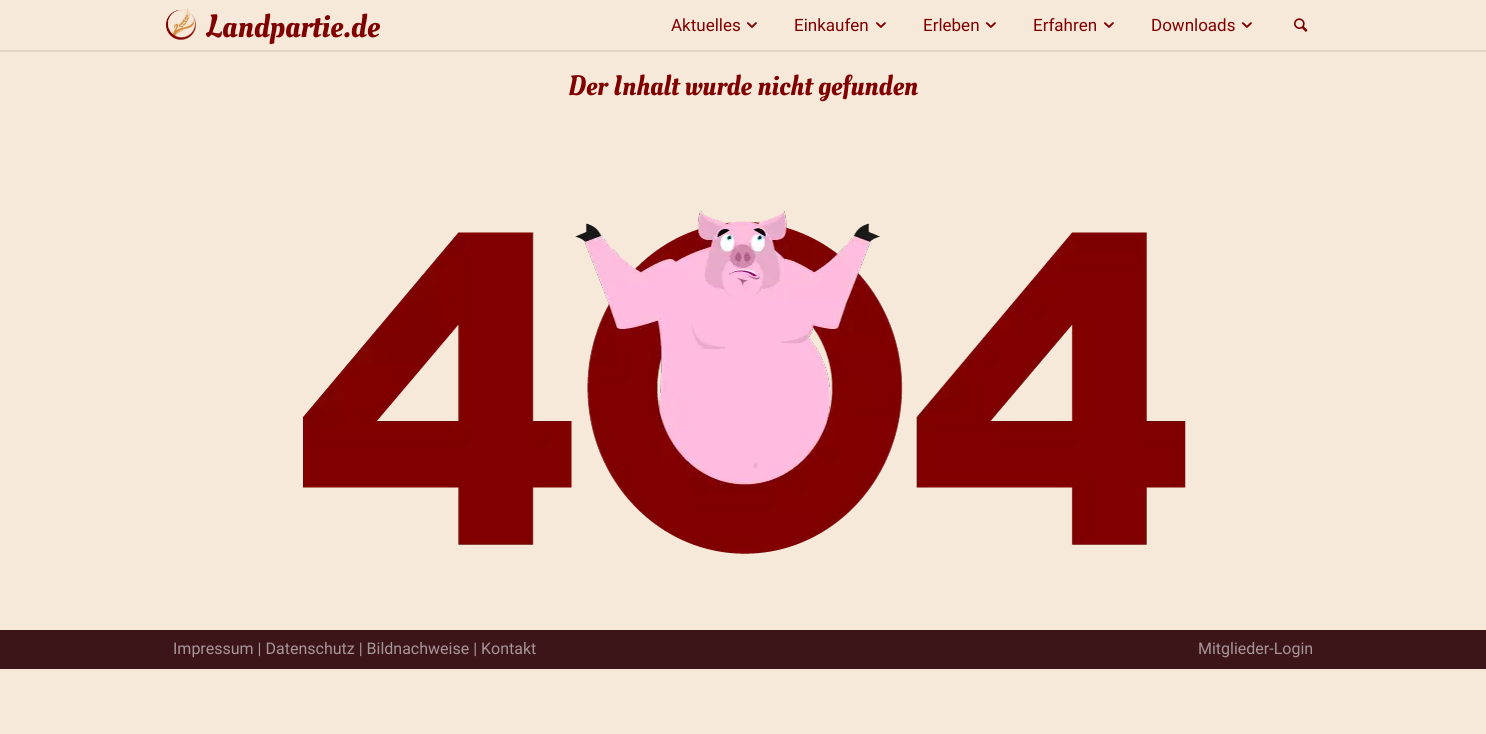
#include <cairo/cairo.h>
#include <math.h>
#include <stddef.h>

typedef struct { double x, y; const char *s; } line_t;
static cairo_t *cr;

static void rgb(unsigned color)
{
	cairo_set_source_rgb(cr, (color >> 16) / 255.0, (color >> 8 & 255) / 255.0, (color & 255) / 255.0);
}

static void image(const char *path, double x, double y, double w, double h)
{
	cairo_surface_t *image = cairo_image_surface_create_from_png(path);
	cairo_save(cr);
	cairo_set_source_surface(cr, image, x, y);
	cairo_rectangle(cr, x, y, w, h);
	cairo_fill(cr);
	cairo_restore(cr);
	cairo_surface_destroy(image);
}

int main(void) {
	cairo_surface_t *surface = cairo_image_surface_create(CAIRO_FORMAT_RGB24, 1486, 734);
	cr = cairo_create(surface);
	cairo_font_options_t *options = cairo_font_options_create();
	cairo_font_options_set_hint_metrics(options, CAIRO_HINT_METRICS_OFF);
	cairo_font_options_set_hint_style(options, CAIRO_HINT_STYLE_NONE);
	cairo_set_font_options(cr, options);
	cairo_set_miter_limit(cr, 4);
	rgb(0xf7e9da);
	cairo_paint(cr);
	rgb(0xe4d4c7);
	cairo_rectangle(cr, 0, 50, 1486, 2);
	cairo_fill(cr);
	image("img/1.png", 166, 8, 31, 32);
	image("img/2.png", 747, 22, 10, 6);
	image("img/2.png", 876, 22, 10, 6);
	image("img/2.png", 986, 22, 10, 6);
	image("img/2.png", 1104, 22, 10, 6);
	image("img/2.png", 1242, 22, 10, 6);
	image("img/3.png", 1294, 18, 14, 14);
	image("img/4.png", 303, 210, 883, 344);
	rgb(0x3c1518);
	cairo_rectangle(cr, 0, 630, 1486, 39);
	cairo_fill(cr);
	cairo_select_font_face(cr, "Oleo Script", CAIRO_FONT_SLANT_NORMAL, CAIRO_FONT_WEIGHT_NORMAL);
	cairo_set_font_size(cr, 32);
	rgb(0x800000);
	cairo_move_to(cr, 206, 37);
	cairo_show_text(cr, "Landpartie.de");
	cairo_select_font_face(cr, "Roboto", CAIRO_FONT_SLANT_NORMAL, CAIRO_FONT_WEIGHT_NORMAL);
	cairo_set_font_size(cr, 17);
	{
		static const line_t items[] = {
			{671, 31, "Aktuelles"},
			{794, 31, "Einkaufen"},
			{923, 31, "Erleben"},
			{1033, 31, "Erfahren"},
			{1151, 31, "Downloads"},
		};
		for (size_t i = 0; i < sizeof items / sizeof *items; i++) {
			cairo_move_to(cr, items[i].x, items[i].y);
			cairo_show_text(cr, items[i].s);
		}
	}
	cairo_select_font_face(cr, "Oleo Script", CAIRO_FONT_SLANT_NORMAL, CAIRO_FONT_WEIGHT_NORMAL);
	cairo_set_font_size(cr, 28);
	cairo_move_to(cr, 568, 95);
	cairo_show_text(cr, "Der Inhalt wurde nicht gefunden");
	cairo_select_font_face(cr, "Roboto", CAIRO_FONT_SLANT_NORMAL, CAIRO_FONT_WEIGHT_NORMAL);
	cairo_set_font_size(cr, 16);
	rgb(0xa79697);
	cairo_move_to(cr, 173, 654);
	cairo_show_text(cr, "Impressum | Datenschutz | Bildnachweise | Kontakt");
	cairo_move_to(cr, 1198, 654);
	cairo_show_text(cr, "Mitglieder-Login");
	cairo_surface_write_to_png(surface, "page.png");
	cairo_font_options_destroy(options);
	cairo_destroy(cr);
	cairo_surface_destroy(surface);
	return 0;
}
